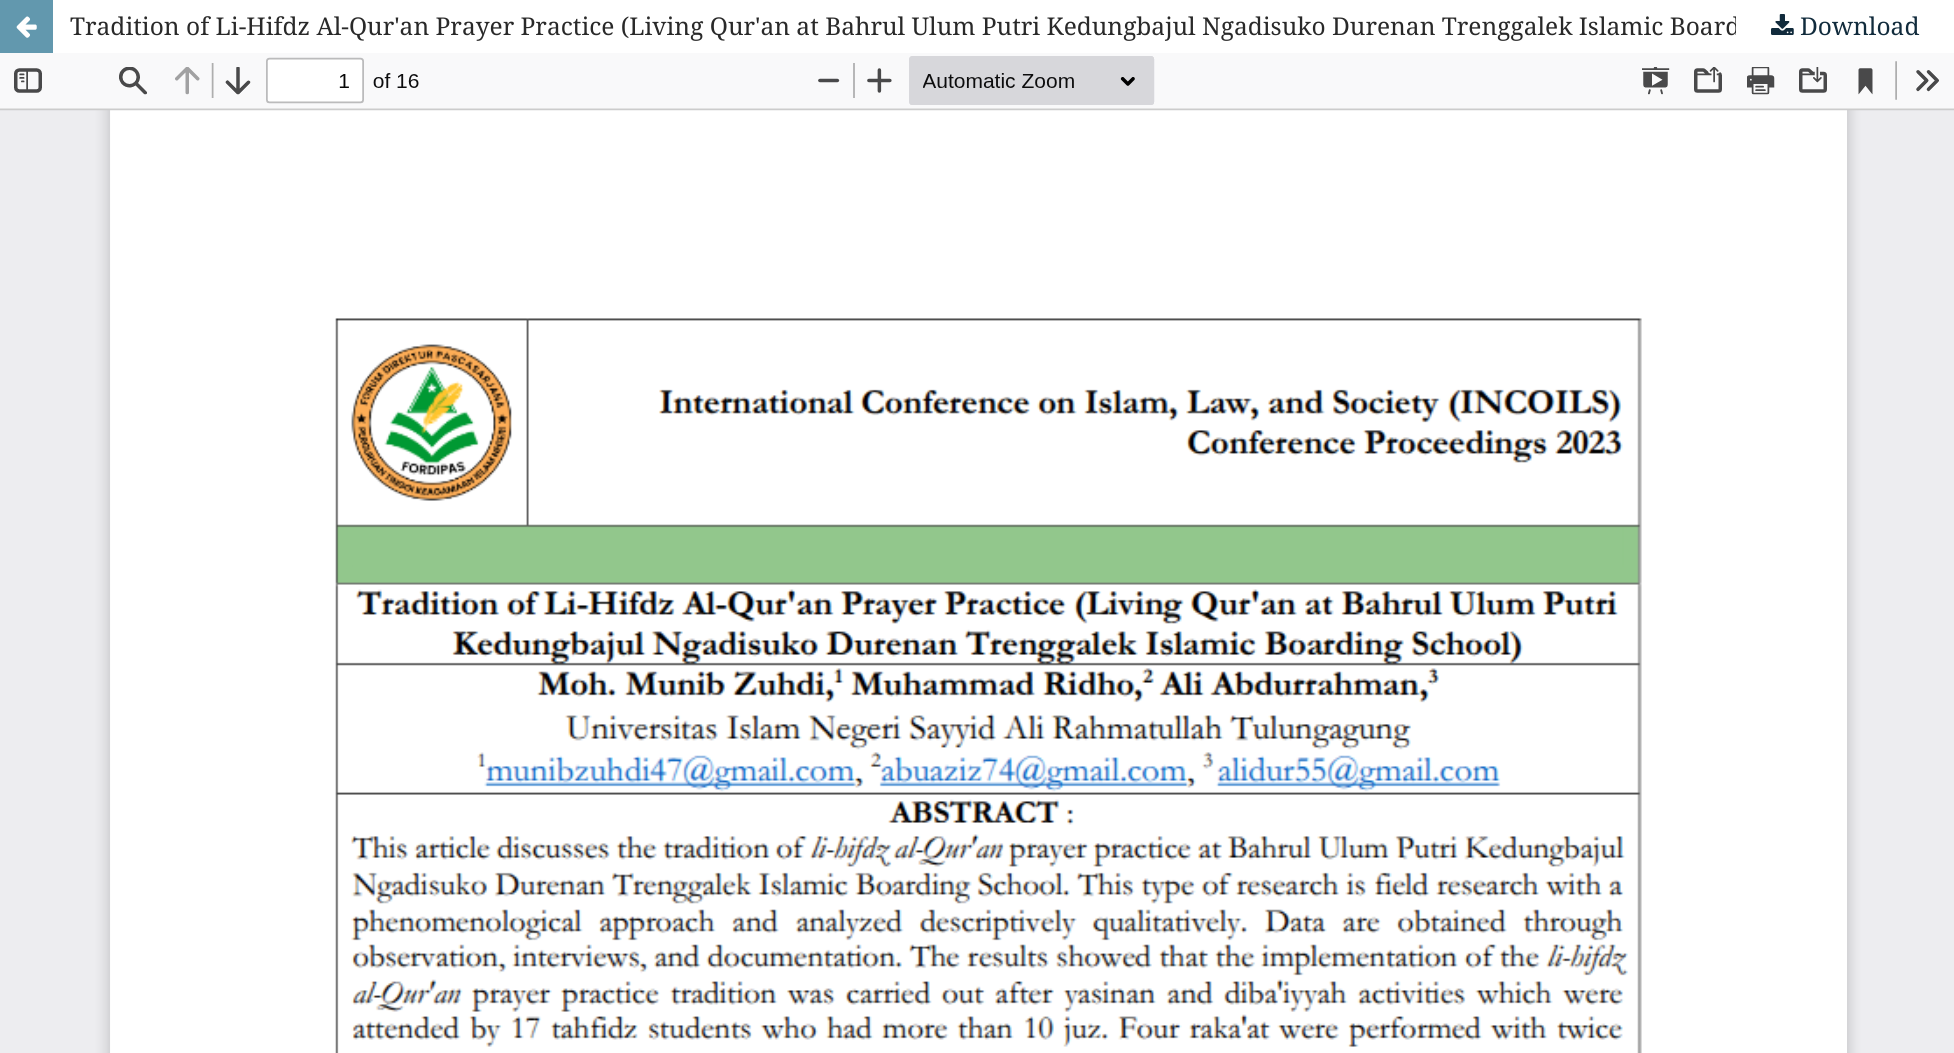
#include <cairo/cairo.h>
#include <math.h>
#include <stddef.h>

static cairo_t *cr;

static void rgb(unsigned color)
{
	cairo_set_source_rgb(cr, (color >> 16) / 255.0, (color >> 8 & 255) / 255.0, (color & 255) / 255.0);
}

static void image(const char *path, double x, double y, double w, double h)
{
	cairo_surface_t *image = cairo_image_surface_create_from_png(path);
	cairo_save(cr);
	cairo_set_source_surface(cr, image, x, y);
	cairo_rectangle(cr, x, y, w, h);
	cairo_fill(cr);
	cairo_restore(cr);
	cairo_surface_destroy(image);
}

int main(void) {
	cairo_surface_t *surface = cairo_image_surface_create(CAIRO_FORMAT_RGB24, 1954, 1053);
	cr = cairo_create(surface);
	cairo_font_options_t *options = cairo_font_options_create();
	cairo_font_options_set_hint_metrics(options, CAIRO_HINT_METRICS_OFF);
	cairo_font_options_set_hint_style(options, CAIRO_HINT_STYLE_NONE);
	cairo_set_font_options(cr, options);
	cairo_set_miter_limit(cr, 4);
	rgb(0xffffff);
	cairo_paint(cr);
	rgb(0x6298ae);
	cairo_rectangle(cr, 0, 0, 53, 53);
	cairo_fill(cr);
	image("img/1.png", 16, 16, 21, 22);
	image("img/2.png", 1771, 14, 23, 21);
	image("img/3.png", 0, 53, 1954, 1000);
	cairo_select_font_face(cr, "Noto Serif", CAIRO_FONT_SLANT_NORMAL, CAIRO_FONT_WEIGHT_NORMAL);
	cairo_set_font_size(cr, 24.5);
	rgb(0x292929);
	cairo_move_to(cr, 70, 35);
	cairo_show_text(cr, "Tradition of Li-Hifdz Al-Qur'an Prayer Practice (Living Qur'an at Bahrul Ulum Putri Kedungbajul Ngadisuko Durenan Trenggalek Islamic Board");
	rgb(0xffffff);
	cairo_rectangle(cr, 1736, 16, 4, 19);
	cairo_fill(cr);
	rgb(0x112b3c);
	cairo_move_to(cr, 1800, 35);
	cairo_show_text(cr, "Download");
	cairo_surface_write_to_png(surface, "page.png");
	cairo_font_options_destroy(options);
	cairo_destroy(cr);
	cairo_surface_destroy(surface);
	return 0;
}
